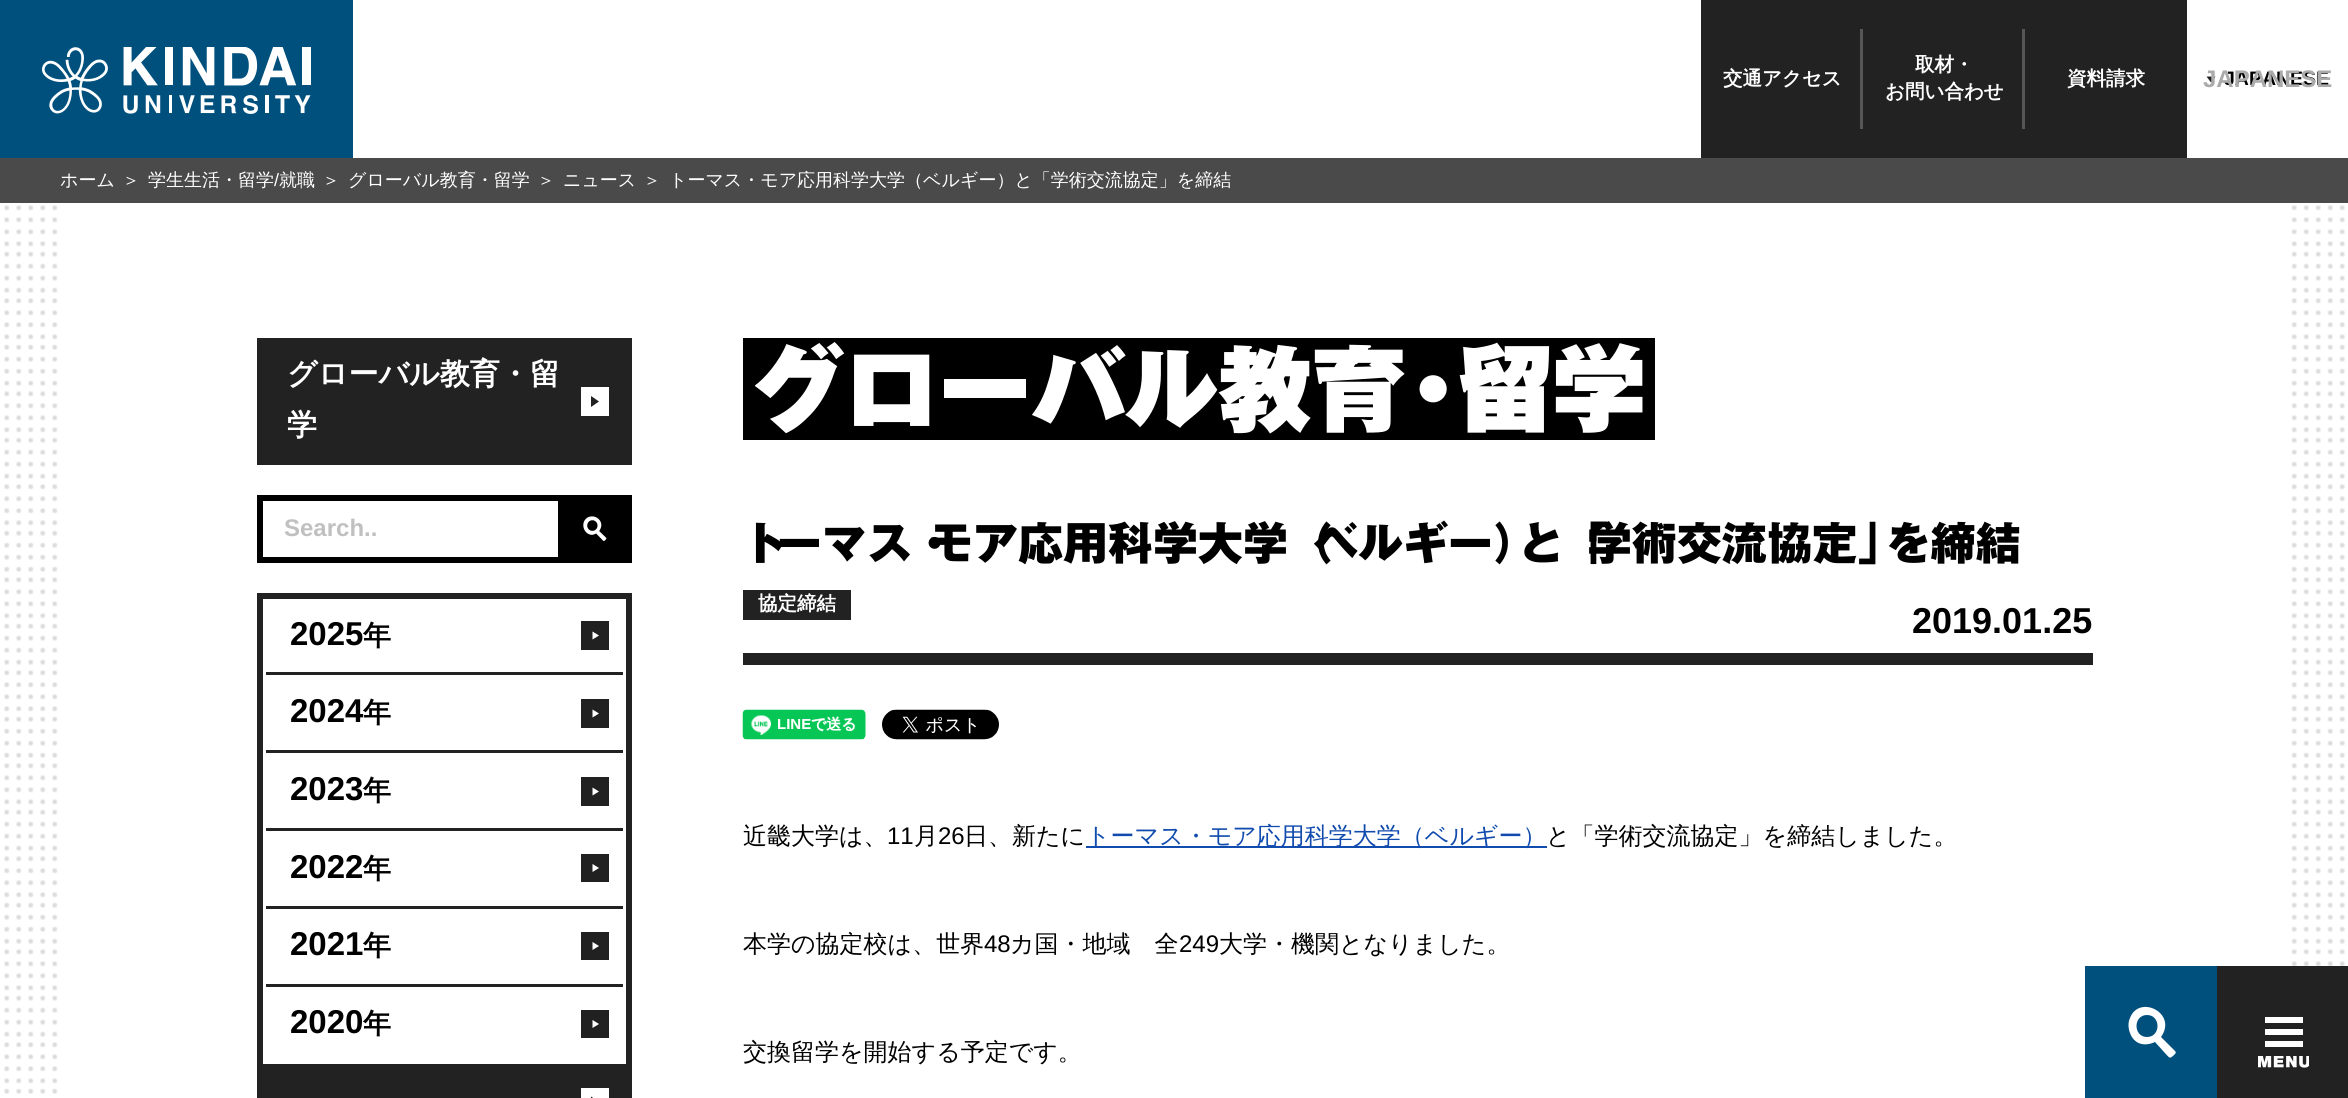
#include <cairo/cairo.h>
#include <math.h>
#include <stddef.h>

typedef struct { double x, y; const char *s; } line_t;
typedef struct { double x, y, w, h; unsigned color; } box_t;
static cairo_t *cr;

static void rgb(unsigned color)
{
	cairo_set_source_rgb(cr, (color >> 16) / 255.0, (color >> 8 & 255) / 255.0, (color & 255) / 255.0);
}

static void image(const char *path, double x, double y, double w, double h)
{
	cairo_surface_t *image = cairo_image_surface_create_from_png(path);
	cairo_save(cr);
	cairo_set_source_surface(cr, image, x, y);
	cairo_rectangle(cr, x, y, w, h);
	cairo_fill(cr);
	cairo_restore(cr);
	cairo_surface_destroy(image);
}

int main(void) {
	cairo_surface_t *surface = cairo_image_surface_create(CAIRO_FORMAT_RGB24, 2348, 1098);
	cr = cairo_create(surface);
	cairo_font_options_t *options = cairo_font_options_create();
	cairo_font_options_set_hint_metrics(options, CAIRO_HINT_METRICS_OFF);
	cairo_font_options_set_hint_style(options, CAIRO_HINT_STYLE_NONE);
	cairo_set_font_options(cr, options);
	cairo_set_miter_limit(cr, 4);
	rgb(0xffffff);
	cairo_paint(cr);
	rgb(0x00507e);
	cairo_rectangle(cr, 0, 0, 353, 158);
	cairo_fill(cr);
	image("img/1.png", 42, 47, 269, 67);
	{
		static const box_t items[] = {
			{1701, 0, 486, 158, 0x222222},
			{1860, 29, 3, 100, 0x565656},
			{2022, 29, 3, 100, 0x565656},
		};
		for (size_t i = 0; i < sizeof items / sizeof *items; i++) {
			rgb(items[i].color);
			cairo_rectangle(cr, items[i].x, items[i].y, items[i].w, items[i].h);
			cairo_fill(cr);
		}
	}
	rgb(0x222222);
	cairo_new_path(cr);
	cairo_move_to(cr, 2206.5, 76.5);
	cairo_line_to(cr, 2215.5, 76.5);
	cairo_line_to(cr, 2211, 82.5);
	cairo_close_path(cr);
	cairo_fill(cr);
	rgb(0x4a4a4a);
	cairo_rectangle(cr, 0, 158, 2348, 45);
	cairo_fill(cr);
	image("img/2.png", 4, 205, 2341, 889);
	rgb(0x222222);
	cairo_rectangle(cr, 257, 338, 375, 127);
	cairo_fill(cr);
	rgb(0xffffff);
	cairo_rectangle(cr, 581, 387, 28, 29);
	cairo_fill(cr);
	rgb(0x212121);
	cairo_new_path(cr);
	cairo_move_to(cr, 599, 401.5);
	cairo_line_to(cr, 591, 407);
	cairo_line_to(cr, 591, 396);
	cairo_close_path(cr);
	cairo_fill(cr);
	{
		static const box_t items[] = {
			{257, 495, 301, 6, 0x000000},
			{257, 557, 301, 6, 0x000000},
			{257, 495, 6, 68, 0x000000},
			{558, 495, 74, 68, 0x000000},
		};
		for (size_t i = 0; i < sizeof items / sizeof *items; i++) {
			rgb(items[i].color);
			cairo_rectangle(cr, items[i].x, items[i].y, items[i].w, items[i].h);
			cairo_fill(cr);
		}
	}
	image("img/3.png", 583, 516, 24, 25);
	cairo_rectangle(cr, 260, 596, 369, 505);
	rgb(0x222222);
	cairo_set_line_width(cr, 6);
	cairo_stroke(cr);
	rgb(0x212121);
	cairo_rectangle(cr, 581, 621, 28, 29);
	cairo_fill(cr);
	rgb(0xffffff);
	cairo_new_path(cr);
	cairo_move_to(cr, 599, 635.5);
	cairo_line_to(cr, 592.5, 639.5);
	cairo_line_to(cr, 592.5, 631.5);
	cairo_close_path(cr);
	cairo_fill(cr);
	rgb(0x222222);
	cairo_rectangle(cr, 266, 672, 357, 3);
	cairo_fill(cr);
	rgb(0x212121);
	cairo_rectangle(cr, 581, 699, 28, 29);
	cairo_fill(cr);
	rgb(0xffffff);
	cairo_new_path(cr);
	cairo_move_to(cr, 599, 713.5);
	cairo_line_to(cr, 592.5, 717.5);
	cairo_line_to(cr, 592.5, 709.5);
	cairo_close_path(cr);
	cairo_fill(cr);
	rgb(0x222222);
	cairo_rectangle(cr, 266, 750, 357, 3);
	cairo_fill(cr);
	rgb(0x212121);
	cairo_rectangle(cr, 581, 777, 28, 29);
	cairo_fill(cr);
	rgb(0xffffff);
	cairo_new_path(cr);
	cairo_move_to(cr, 599, 791.5);
	cairo_line_to(cr, 592.5, 795.5);
	cairo_line_to(cr, 592.5, 787.5);
	cairo_close_path(cr);
	cairo_fill(cr);
	rgb(0x222222);
	cairo_rectangle(cr, 266, 828, 357, 3);
	cairo_fill(cr);
	rgb(0x212121);
	cairo_rectangle(cr, 581, 854, 28, 28);
	cairo_fill(cr);
	rgb(0xffffff);
	cairo_new_path(cr);
	cairo_move_to(cr, 599, 868);
	cairo_line_to(cr, 592.5, 872);
	cairo_line_to(cr, 592.5, 864);
	cairo_close_path(cr);
	cairo_fill(cr);
	rgb(0x222222);
	cairo_rectangle(cr, 266, 906, 357, 3);
	cairo_fill(cr);
	rgb(0x212121);
	cairo_rectangle(cr, 581, 932, 28, 28);
	cairo_fill(cr);
	rgb(0xffffff);
	cairo_new_path(cr);
	cairo_move_to(cr, 599, 946);
	cairo_line_to(cr, 592.5, 950);
	cairo_line_to(cr, 592.5, 942);
	cairo_close_path(cr);
	cairo_fill(cr);
	rgb(0x222222);
	cairo_rectangle(cr, 266, 984, 357, 3);
	cairo_fill(cr);
	rgb(0x212121);
	cairo_rectangle(cr, 581, 1010, 28, 28);
	cairo_fill(cr);
	rgb(0xffffff);
	cairo_new_path(cr);
	cairo_move_to(cr, 599, 1024);
	cairo_line_to(cr, 592.5, 1028);
	cairo_line_to(cr, 592.5, 1020);
	cairo_close_path(cr);
	cairo_fill(cr);
	rgb(0x222222);
	cairo_rectangle(cr, 263, 1064, 363, 34);
	cairo_fill(cr);
	rgb(0xffffff);
	cairo_rectangle(cr, 581, 1088, 28, 10);
	cairo_fill(cr);
	rgb(0x212121);
	cairo_new_path(cr);
	cairo_move_to(cr, 599, 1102);
	cairo_line_to(cr, 591, 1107.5);
	cairo_line_to(cr, 591, 1096.5);
	cairo_close_path(cr);
	cairo_fill(cr);
	rgb(0x000000);
	cairo_rectangle(cr, 743, 338, 912, 102);
	cairo_fill(cr);
	image("img/4.png", 755, 342, 888, 92);
	rgb(0x222222);
	cairo_rectangle(cr, 743, 653, 1350, 12);
	cairo_fill(cr);
	cairo_rectangle(cr, 743, 590, 108, 30);
	cairo_fill(cr);
	image("img/5.png", 742, 709, 124, 31);
	image("img/6.png", 882, 709, 117, 31);
	rgb(0x104bad);
	cairo_rectangle(cr, 1086, 846, 461, 2);
	cairo_fill(cr);
	rgb(0x00507e);
	cairo_rectangle(cr, 2085, 966, 132, 132);
	cairo_fill(cr);
	rgb(0xffffff);
	cairo_set_fill_rule(cr, CAIRO_FILL_RULE_EVEN_ODD);
	cairo_new_path(cr);
	cairo_move_to(cr, 2175, 1054);
	cairo_curve_to(cr, 2169, 1060, 2170, 1058, 2164, 1052);
	cairo_line_to(cr, 2155, 1042);
	cairo_curve_to(cr, 2144, 1047, 2134, 1044, 2130, 1033);
	cairo_curve_to(cr, 2128, 1028, 2128, 1022, 2130, 1018);
	cairo_curve_to(cr, 2139, 994, 2178, 1013, 2161, 1037);
	cairo_line_to(cr, 2175, 1051);
	cairo_curve_to(cr, 2176, 1052, 2176, 1053, 2175, 1054);
	cairo_close_path(cr);
	cairo_move_to(cr, 2147, 1015);
	cairo_curve_to(cr, 2133, 1015, 2133, 1037, 2147, 1037);
	cairo_curve_to(cr, 2161, 1037, 2161, 1015, 2147, 1015);
	cairo_close_path(cr);
	cairo_fill(cr);
	{
		static const box_t items[] = {
			{2217, 966, 131, 132, 0x222222},
			{2265, 1017, 38, 6, 0xffffff},
			{2265, 1029, 38, 6, 0xffffff},
			{2265, 1041, 38, 6, 0xffffff},
		};
		for (size_t i = 0; i < sizeof items / sizeof *items; i++) {
			rgb(items[i].color);
			cairo_rectangle(cr, items[i].x, items[i].y, items[i].w, items[i].h);
			cairo_fill(cr);
		}
	}
	image("img/7.png", 2258, 1056, 51, 12);
	cairo_select_font_face(cr, "WenQuanYi Zen Hei", CAIRO_FONT_SLANT_NORMAL, CAIRO_FONT_WEIGHT_BOLD);
	cairo_set_font_size(cr, 19.5);
	{
		static const line_t items[] = {
			{1723, 85, "交通アクセス"},
			{1915, 71, "取材・"},
			{1885, 98, "お問い合わせ"},
			{2067, 85, "資料請求"},
		};
		for (size_t i = 0; i < sizeof items / sizeof *items; i++) {
			cairo_move_to(cr, items[i].x, items[i].y);
			cairo_show_text(cr, items[i].s);
		}
	}
	cairo_select_font_face(cr, "Liberation Sans", CAIRO_FONT_SLANT_NORMAL, CAIRO_FONT_WEIGHT_BOLD);
	rgb(0x000000);
	cairo_move_to(cr, 2224, 85);
	cairo_show_text(cr, "JAPANESE");
	cairo_set_font_size(cr, 24);
	rgb(0xababab);
	cairo_move_to(cr, 2203, 87);
	cairo_show_text(cr, "JAPANESE");
	cairo_select_font_face(cr, "WenQuanYi Zen Hei Medium", CAIRO_FONT_SLANT_NORMAL, CAIRO_FONT_WEIGHT_NORMAL);
	cairo_set_font_size(cr, 18);
	rgb(0xffffff);
	{
		static const line_t items[] = {
			{60, 186, "ホーム"},
			{122, 186, "＞"},
			{148, 186, "学生生活・留学"},
		};
		for (size_t i = 0; i < sizeof items / sizeof *items; i++) {
			cairo_move_to(cr, items[i].x, items[i].y);
			cairo_show_text(cr, items[i].s);
		}
	}
	cairo_select_font_face(cr, "Liberation Sans", CAIRO_FONT_SLANT_NORMAL, CAIRO_FONT_WEIGHT_NORMAL);
	cairo_move_to(cr, 274, 186);
	cairo_show_text(cr, "/");
	cairo_select_font_face(cr, "WenQuanYi Zen Hei Medium", CAIRO_FONT_SLANT_NORMAL, CAIRO_FONT_WEIGHT_NORMAL);
	{
		static const line_t items[] = {
			{279, 186, "就職"},
			{322, 186, "＞"},
			{348, 186, "グローバル教育・留学"},
			{537, 186, "＞"},
			{563, 186, "ニュース"},
			{643, 186, "＞"},
			{669, 186, "トーマス・モア応用科学大学（ベルギー）と「学術交流協定」を締結"},
		};
		for (size_t i = 0; i < sizeof items / sizeof *items; i++) {
			cairo_move_to(cr, items[i].x, items[i].y);
			cairo_show_text(cr, items[i].s);
		}
	}
	cairo_select_font_face(cr, "WenQuanYi Zen Hei", CAIRO_FONT_SLANT_NORMAL, CAIRO_FONT_WEIGHT_BOLD);
	cairo_set_font_size(cr, 30);
	cairo_move_to(cr, 287, 384);
	cairo_show_text(cr, "グローバル教育・留");
	cairo_move_to(cr, 287, 435);
	cairo_show_text(cr, "学");
	cairo_select_font_face(cr, "Liberation Sans", CAIRO_FONT_SLANT_NORMAL, CAIRO_FONT_WEIGHT_BOLD);
	cairo_set_font_size(cr, 24);
	rgb(0xc0c0c0);
	cairo_move_to(cr, 284, 536);
	cairo_show_text(cr, "Search..");
	cairo_set_font_size(cr, 33);
	rgb(0x000000);
	cairo_move_to(cr, 290, 645);
	cairo_show_text(cr, "2025");
	cairo_select_font_face(cr, "WenQuanYi Zen Hei", CAIRO_FONT_SLANT_NORMAL, CAIRO_FONT_WEIGHT_BOLD);
	cairo_set_font_size(cr, 28);
	cairo_move_to(cr, 363, 645);
	cairo_show_text(cr, "年");
	cairo_select_font_face(cr, "Liberation Sans", CAIRO_FONT_SLANT_NORMAL, CAIRO_FONT_WEIGHT_BOLD);
	cairo_set_font_size(cr, 33);
	cairo_move_to(cr, 290, 722);
	cairo_show_text(cr, "2024");
	cairo_select_font_face(cr, "WenQuanYi Zen Hei", CAIRO_FONT_SLANT_NORMAL, CAIRO_FONT_WEIGHT_BOLD);
	cairo_set_font_size(cr, 28);
	cairo_move_to(cr, 363, 722);
	cairo_show_text(cr, "年");
	cairo_select_font_face(cr, "Liberation Sans", CAIRO_FONT_SLANT_NORMAL, CAIRO_FONT_WEIGHT_BOLD);
	cairo_set_font_size(cr, 33);
	cairo_move_to(cr, 290, 800);
	cairo_show_text(cr, "2023");
	cairo_select_font_face(cr, "WenQuanYi Zen Hei", CAIRO_FONT_SLANT_NORMAL, CAIRO_FONT_WEIGHT_BOLD);
	cairo_set_font_size(cr, 28);
	cairo_move_to(cr, 363, 800);
	cairo_show_text(cr, "年");
	cairo_select_font_face(cr, "Liberation Sans", CAIRO_FONT_SLANT_NORMAL, CAIRO_FONT_WEIGHT_BOLD);
	cairo_set_font_size(cr, 33);
	cairo_move_to(cr, 290, 878);
	cairo_show_text(cr, "2022");
	cairo_select_font_face(cr, "WenQuanYi Zen Hei", CAIRO_FONT_SLANT_NORMAL, CAIRO_FONT_WEIGHT_BOLD);
	cairo_set_font_size(cr, 28);
	cairo_move_to(cr, 363, 878);
	cairo_show_text(cr, "年");
	cairo_select_font_face(cr, "Liberation Sans", CAIRO_FONT_SLANT_NORMAL, CAIRO_FONT_WEIGHT_BOLD);
	cairo_set_font_size(cr, 33);
	cairo_move_to(cr, 290, 955);
	cairo_show_text(cr, "2021");
	cairo_select_font_face(cr, "WenQuanYi Zen Hei", CAIRO_FONT_SLANT_NORMAL, CAIRO_FONT_WEIGHT_BOLD);
	cairo_set_font_size(cr, 28);
	cairo_move_to(cr, 363, 955);
	cairo_show_text(cr, "年");
	cairo_select_font_face(cr, "Liberation Sans", CAIRO_FONT_SLANT_NORMAL, CAIRO_FONT_WEIGHT_BOLD);
	cairo_set_font_size(cr, 33);
	cairo_move_to(cr, 290, 1033);
	cairo_show_text(cr, "2020");
	cairo_select_font_face(cr, "WenQuanYi Zen Hei", CAIRO_FONT_SLANT_NORMAL, CAIRO_FONT_WEIGHT_BOLD);
	cairo_set_font_size(cr, 28);
	cairo_move_to(cr, 363, 1033);
	cairo_show_text(cr, "年");
	cairo_select_font_face(cr, "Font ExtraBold", CAIRO_FONT_SLANT_NORMAL, CAIRO_FONT_WEIGHT_NORMAL);
	cairo_set_font_size(cr, 45);
	cairo_move_to(cr, 743, 560);
	cairo_show_text(cr, "ト");
	cairo_move_to(cr, 777, 560);
	cairo_show_text(cr, "ーマス・");
	cairo_move_to(cr, 928, 560);
	cairo_show_text(cr, "モア応用科学大学（");
	cairo_move_to(cr, 1313, 560);
	cairo_show_text(cr, "ベルギー）");
	cairo_move_to(cr, 1519, 560);
	cairo_show_text(cr, "と「");
	cairo_move_to(cr, 1587, 560);
	cairo_show_text(cr, "学術交流協定」");
	cairo_move_to(cr, 1886, 560);
	cairo_show_text(cr, "を締結");
	cairo_select_font_face(cr, "WenQuanYi Zen Hei", CAIRO_FONT_SLANT_NORMAL, CAIRO_FONT_WEIGHT_BOLD);
	cairo_set_font_size(cr, 19.5);
	rgb(0xffffff);
	cairo_move_to(cr, 758, 610);
	cairo_show_text(cr, "協定締結");
	cairo_select_font_face(cr, "Liberation Sans", CAIRO_FONT_SLANT_NORMAL, CAIRO_FONT_WEIGHT_BOLD);
	cairo_set_font_size(cr, 36);
	rgb(0x000000);
	cairo_move_to(cr, 1912, 633);
	cairo_show_text(cr, "2019.01.25");
	cairo_select_font_face(cr, "WenQuanYi Zen Hei Medium", CAIRO_FONT_SLANT_NORMAL, CAIRO_FONT_WEIGHT_NORMAL);
	cairo_set_font_size(cr, 24);
	cairo_move_to(cr, 743, 844);
	cairo_show_text(cr, "近畿大学は、");
	cairo_select_font_face(cr, "Liberation Sans", CAIRO_FONT_SLANT_NORMAL, CAIRO_FONT_WEIGHT_NORMAL);
	cairo_move_to(cr, 887, 844);
	cairo_show_text(cr, "11");
	cairo_select_font_face(cr, "WenQuanYi Zen Hei Medium", CAIRO_FONT_SLANT_NORMAL, CAIRO_FONT_WEIGHT_NORMAL);
	cairo_move_to(cr, 914, 844);
	cairo_show_text(cr, "月");
	cairo_select_font_face(cr, "Liberation Sans", CAIRO_FONT_SLANT_NORMAL, CAIRO_FONT_WEIGHT_NORMAL);
	cairo_move_to(cr, 938, 844);
	cairo_show_text(cr, "26");
	cairo_select_font_face(cr, "WenQuanYi Zen Hei Medium", CAIRO_FONT_SLANT_NORMAL, CAIRO_FONT_WEIGHT_NORMAL);
	cairo_move_to(cr, 964, 844);
	cairo_show_text(cr, "日、新たに");
	rgb(0x104bad);
	cairo_move_to(cr, 1086, 844);
	cairo_show_text(cr, "トーマス・モア応用科学大学（ベルギー）");
	rgb(0x000000);
	cairo_move_to(cr, 1546, 844);
	cairo_show_text(cr, "と「学術交流協定」を締結しました。");
	cairo_move_to(cr, 743, 952);
	cairo_show_text(cr, "本学の協定校は、世界");
	cairo_select_font_face(cr, "Liberation Sans", CAIRO_FONT_SLANT_NORMAL, CAIRO_FONT_WEIGHT_NORMAL);
	cairo_move_to(cr, 984, 952);
	cairo_show_text(cr, "48");
	cairo_select_font_face(cr, "WenQuanYi Zen Hei Medium", CAIRO_FONT_SLANT_NORMAL, CAIRO_FONT_WEIGHT_NORMAL);
	cairo_move_to(cr, 1010, 952);
	cairo_show_text(cr, "カ国・地域　全");
	cairo_select_font_face(cr, "Liberation Sans", CAIRO_FONT_SLANT_NORMAL, CAIRO_FONT_WEIGHT_NORMAL);
	cairo_move_to(cr, 1179, 952);
	cairo_show_text(cr, "249");
	cairo_select_font_face(cr, "WenQuanYi Zen Hei Medium", CAIRO_FONT_SLANT_NORMAL, CAIRO_FONT_WEIGHT_NORMAL);
	cairo_move_to(cr, 1219, 952);
	cairo_show_text(cr, "大学・機関となりました。");
	cairo_move_to(cr, 743, 1060);
	cairo_show_text(cr, "交換留学を開始する予定です。");
	cairo_surface_write_to_png(surface, "page.png");
	cairo_font_options_destroy(options);
	cairo_destroy(cr);
	cairo_surface_destroy(surface);
	return 0;
}
